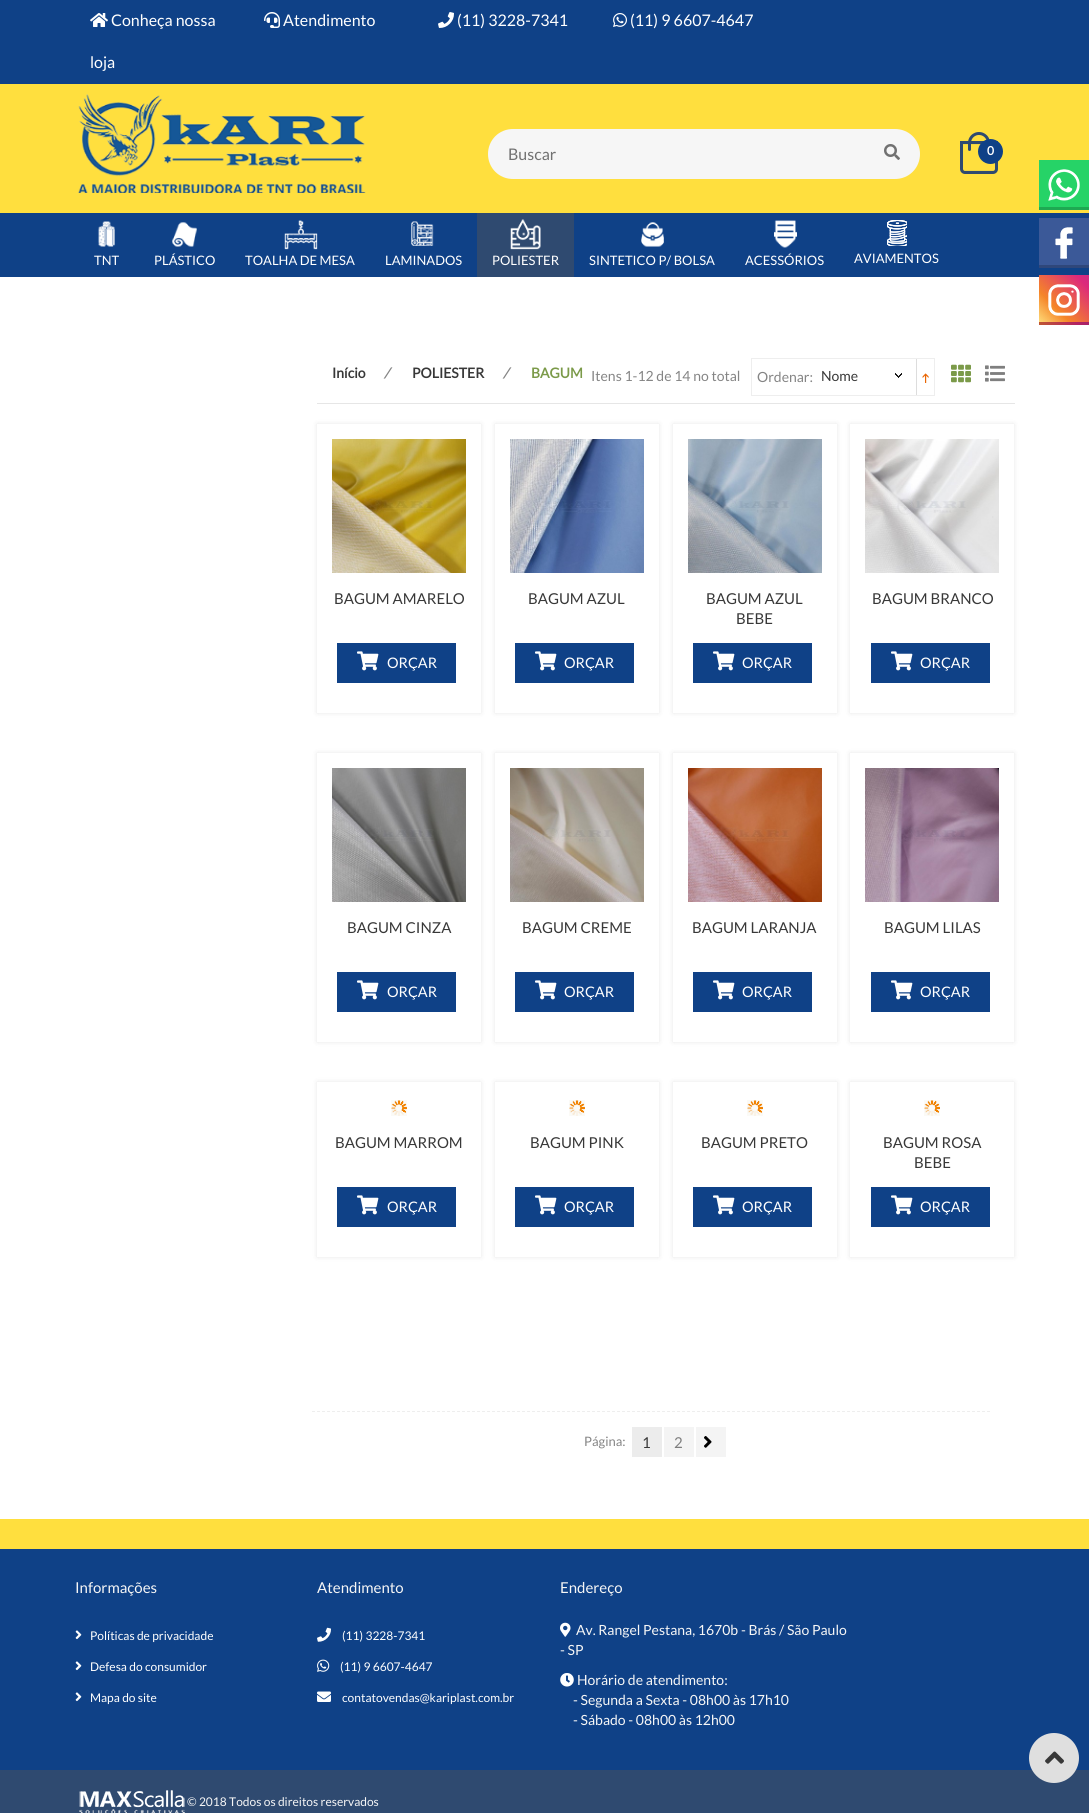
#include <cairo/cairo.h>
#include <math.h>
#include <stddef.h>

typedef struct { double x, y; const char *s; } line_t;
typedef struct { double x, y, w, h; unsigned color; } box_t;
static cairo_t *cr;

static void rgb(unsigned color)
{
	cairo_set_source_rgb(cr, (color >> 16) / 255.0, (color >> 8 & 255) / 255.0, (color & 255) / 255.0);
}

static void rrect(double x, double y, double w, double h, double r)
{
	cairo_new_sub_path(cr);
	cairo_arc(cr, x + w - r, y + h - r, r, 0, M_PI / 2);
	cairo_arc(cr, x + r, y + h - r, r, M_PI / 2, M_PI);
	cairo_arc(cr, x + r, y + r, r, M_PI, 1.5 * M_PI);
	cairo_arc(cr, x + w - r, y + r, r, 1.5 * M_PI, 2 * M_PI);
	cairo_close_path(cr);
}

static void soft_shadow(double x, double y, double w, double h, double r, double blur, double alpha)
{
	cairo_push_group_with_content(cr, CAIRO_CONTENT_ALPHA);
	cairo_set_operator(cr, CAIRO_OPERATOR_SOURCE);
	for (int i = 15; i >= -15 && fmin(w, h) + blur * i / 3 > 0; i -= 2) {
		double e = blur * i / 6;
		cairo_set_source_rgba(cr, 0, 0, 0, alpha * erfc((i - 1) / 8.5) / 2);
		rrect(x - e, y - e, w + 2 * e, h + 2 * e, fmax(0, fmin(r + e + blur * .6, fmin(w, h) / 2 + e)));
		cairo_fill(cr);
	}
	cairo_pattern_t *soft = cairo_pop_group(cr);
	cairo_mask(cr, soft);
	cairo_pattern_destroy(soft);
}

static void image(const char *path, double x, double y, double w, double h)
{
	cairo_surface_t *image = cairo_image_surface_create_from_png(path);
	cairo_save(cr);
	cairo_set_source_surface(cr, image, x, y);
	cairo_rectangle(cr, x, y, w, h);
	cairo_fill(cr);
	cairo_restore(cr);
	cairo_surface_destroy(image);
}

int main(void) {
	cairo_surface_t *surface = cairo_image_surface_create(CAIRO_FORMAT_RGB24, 1089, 1813);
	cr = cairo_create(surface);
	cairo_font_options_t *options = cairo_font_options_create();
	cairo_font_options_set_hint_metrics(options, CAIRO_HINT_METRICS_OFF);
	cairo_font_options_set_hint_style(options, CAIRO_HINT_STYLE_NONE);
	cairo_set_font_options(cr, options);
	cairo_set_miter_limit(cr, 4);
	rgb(0xffffff);
	cairo_paint(cr);
	rgb(0x0f4187);
	cairo_rectangle(cr, 0, 0, 1089, 84);
	cairo_fill(cr);
	image("img/1.png", 90, 13, 18, 14);
	image("img/2.png", 264, 12, 16, 16);
	image("img/3.png", 438, 12, 16, 16);
	image("img/4.png", 613, 13, 14, 14);
	rgb(0xffdf3e);
	cairo_rectangle(cr, 0, 84, 1089, 129);
	cairo_fill(cr);
	image("img/5.png", 78, 94, 288, 99);
	rgb(0xf6f6f6);
	cairo_new_path(cr);
	cairo_move_to(cr, 513, 129);
	cairo_line_to(cr, 868, 129);
	cairo_line_to(cr, 868, 179);
	cairo_line_to(cr, 513, 179);
	cairo_curve_to(cr, 499, 179, 488, 168, 488, 154);
	cairo_curve_to(cr, 488, 140, 499, 129, 513, 129);
	cairo_close_path(cr);
	cairo_fill(cr);
	cairo_new_path(cr);
	cairo_move_to(cr, 868, 129);
	cairo_line_to(cr, 895, 129);
	cairo_curve_to(cr, 909, 129, 920, 140, 920, 154);
	cairo_curve_to(cr, 920, 168, 909, 179, 895, 179);
	cairo_line_to(cr, 868, 179);
	cairo_close_path(cr);
	cairo_fill(cr);
	image("img/6.png", 884, 144, 16, 16);
	image("img/7.png", 960, 132, 38, 42);
	rgb(0x0f4187);
	cairo_arc(cr, 990.5, 151.5, 12.5, 0, 2 * M_PI);
	cairo_fill(cr);
	cairo_rectangle(cr, 0, 213, 1089, 64);
	cairo_fill(cr);
	image("img/8.png", 98, 221, 17, 26);
	image("img/9.png", 172, 222, 25, 25);
	image("img/10.png", 284, 220, 34, 30);
	image("img/11.png", 411, 221, 23, 25);
	rgb(0x2f4a70);
	cairo_rectangle(cr, 477, 213, 97, 64);
	cairo_fill(cr);
	image("img/12.png", 510, 219, 31, 31);
	image("img/13.png", 641, 222, 23, 25);
	image("img/14.png", 774, 220, 23, 28);
	image("img/15.png", 887, 220, 20, 26);
	rgb(0x26d367);
	cairo_rectangle(cr, 1039, 160, 50, 47);
	cairo_fill(cr);
	image("img/16.png", 1048, 169, 32, 32);
	rgb(0x1ea952);
	cairo_rectangle(cr, 1039, 207, 50, 3);
	cairo_fill(cr);
	rgb(0x3b5998);
	cairo_rectangle(cr, 1039, 218, 50, 47);
	cairo_fill(cr);
	image("img/17.png", 1055, 227, 18, 32);
	rgb(0x2f477a);
	cairo_rectangle(cr, 1039, 265, 50, 3);
	cairo_fill(cr);
	image("img/18.png", 1039, 275, 50, 50);
	cairo_set_source_rgba(cr, 0, 0, 0, 0.2);
	cairo_rectangle(cr, 1039, 322, 50, 3);
	cairo_fill(cr);
	rgb(0xe6e6e6);
	cairo_rectangle(cr, 317, 403, 698, 1);
	cairo_fill(cr);
	cairo_rectangle(cr, 751.5, 358.5, 183, 37);
	rgb(0xeeeeee);
	cairo_set_line_width(cr, 1);
	cairo_stroke(cr);
	rgb(0xdddddd);
	cairo_rectangle(cr, 916, 359, 1, 36);
	cairo_fill(cr);
	image("img/19.png", 895, 373, 7, 5);
	image("img/20.png", 922, 373, 7, 10);
	image("img/21.png", 951, 364, 20, 19);
	image("img/22.png", 985, 365, 20, 17);
	cairo_save(cr);
	cairo_set_fill_rule(cr, CAIRO_FILL_RULE_EVEN_ODD);
	cairo_new_path(cr);
	cairo_move_to(cr, 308, 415);
	cairo_line_to(cr, 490, 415);
	cairo_line_to(cr, 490, 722);
	cairo_line_to(cr, 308, 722);
	cairo_close_path(cr);
	cairo_move_to(cr, 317, 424);
	cairo_line_to(cr, 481, 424);
	cairo_line_to(cr, 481, 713);
	cairo_line_to(cr, 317, 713);
	cairo_close_path(cr);
	cairo_clip(cr);
	rgb(0x000000);
	soft_shadow(317, 424, 164, 289, 0, 2.5, 0.1);
	cairo_restore(cr);
	image("img/23.png", 332, 439, 134, 134);
	rgb(0x0f4187);
	cairo_rectangle(cr, 337, 643, 119, 40);
	cairo_fill(cr);
	image("img/24.png", 357, 651, 22, 20);
	cairo_save(cr);
	cairo_set_fill_rule(cr, CAIRO_FILL_RULE_EVEN_ODD);
	cairo_new_path(cr);
	cairo_move_to(cr, 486, 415);
	cairo_line_to(cr, 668, 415);
	cairo_line_to(cr, 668, 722);
	cairo_line_to(cr, 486, 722);
	cairo_close_path(cr);
	cairo_move_to(cr, 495, 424);
	cairo_line_to(cr, 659, 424);
	cairo_line_to(cr, 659, 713);
	cairo_line_to(cr, 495, 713);
	cairo_close_path(cr);
	cairo_clip(cr);
	rgb(0x000000);
	soft_shadow(495, 424, 164, 289, 0, 2.5, 0.1);
	cairo_restore(cr);
	image("img/25.png", 510, 439, 134, 134);
	cairo_rectangle(cr, 515, 643, 119, 40);
	cairo_fill(cr);
	image("img/24.png", 535, 651, 22, 20);
	cairo_save(cr);
	cairo_set_fill_rule(cr, CAIRO_FILL_RULE_EVEN_ODD);
	cairo_new_path(cr);
	cairo_move_to(cr, 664, 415);
	cairo_line_to(cr, 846, 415);
	cairo_line_to(cr, 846, 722);
	cairo_line_to(cr, 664, 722);
	cairo_close_path(cr);
	cairo_move_to(cr, 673, 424);
	cairo_line_to(cr, 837, 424);
	cairo_line_to(cr, 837, 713);
	cairo_line_to(cr, 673, 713);
	cairo_close_path(cr);
	cairo_clip(cr);
	rgb(0x000000);
	soft_shadow(673, 424, 164, 289, 0, 2.5, 0.1);
	cairo_restore(cr);
	image("img/26.png", 688, 439, 134, 134);
	cairo_rectangle(cr, 693, 643, 119, 40);
	cairo_fill(cr);
	image("img/24.png", 713, 651, 22, 20);
	cairo_save(cr);
	cairo_set_fill_rule(cr, CAIRO_FILL_RULE_EVEN_ODD);
	cairo_new_path(cr);
	cairo_move_to(cr, 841, 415);
	cairo_line_to(cr, 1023, 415);
	cairo_line_to(cr, 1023, 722);
	cairo_line_to(cr, 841, 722);
	cairo_close_path(cr);
	cairo_move_to(cr, 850, 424);
	cairo_line_to(cr, 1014, 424);
	cairo_line_to(cr, 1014, 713);
	cairo_line_to(cr, 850, 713);
	cairo_close_path(cr);
	cairo_clip(cr);
	rgb(0x000000);
	soft_shadow(850, 424, 164, 289, 0, 2.5, 0.1);
	cairo_restore(cr);
	image("img/27.png", 865, 439, 134, 134);
	cairo_rectangle(cr, 871, 643, 119, 40);
	cairo_fill(cr);
	image("img/24.png", 891, 651, 22, 20);
	cairo_save(cr);
	cairo_set_fill_rule(cr, CAIRO_FILL_RULE_EVEN_ODD);
	cairo_new_path(cr);
	cairo_move_to(cr, 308, 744);
	cairo_line_to(cr, 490, 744);
	cairo_line_to(cr, 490, 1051);
	cairo_line_to(cr, 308, 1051);
	cairo_close_path(cr);
	cairo_move_to(cr, 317, 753);
	cairo_line_to(cr, 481, 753);
	cairo_line_to(cr, 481, 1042);
	cairo_line_to(cr, 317, 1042);
	cairo_close_path(cr);
	cairo_clip(cr);
	rgb(0x000000);
	soft_shadow(317, 753, 164, 289, 0, 2.5, 0.1);
	cairo_restore(cr);
	image("img/28.png", 332, 768, 134, 134);
	cairo_rectangle(cr, 337, 972, 119, 40);
	cairo_fill(cr);
	image("img/24.png", 357, 980, 22, 20);
	cairo_save(cr);
	cairo_set_fill_rule(cr, CAIRO_FILL_RULE_EVEN_ODD);
	cairo_new_path(cr);
	cairo_move_to(cr, 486, 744);
	cairo_line_to(cr, 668, 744);
	cairo_line_to(cr, 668, 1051);
	cairo_line_to(cr, 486, 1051);
	cairo_close_path(cr);
	cairo_move_to(cr, 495, 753);
	cairo_line_to(cr, 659, 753);
	cairo_line_to(cr, 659, 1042);
	cairo_line_to(cr, 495, 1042);
	cairo_close_path(cr);
	cairo_clip(cr);
	rgb(0x000000);
	soft_shadow(495, 753, 164, 289, 0, 2.5, 0.1);
	cairo_restore(cr);
	image("img/29.png", 510, 768, 134, 134);
	cairo_rectangle(cr, 515, 972, 119, 40);
	cairo_fill(cr);
	image("img/24.png", 535, 980, 22, 20);
	cairo_save(cr);
	cairo_set_fill_rule(cr, CAIRO_FILL_RULE_EVEN_ODD);
	cairo_new_path(cr);
	cairo_move_to(cr, 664, 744);
	cairo_line_to(cr, 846, 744);
	cairo_line_to(cr, 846, 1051);
	cairo_line_to(cr, 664, 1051);
	cairo_close_path(cr);
	cairo_move_to(cr, 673, 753);
	cairo_line_to(cr, 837, 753);
	cairo_line_to(cr, 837, 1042);
	cairo_line_to(cr, 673, 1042);
	cairo_close_path(cr);
	cairo_clip(cr);
	rgb(0x000000);
	soft_shadow(673, 753, 164, 289, 0, 2.5, 0.1);
	cairo_restore(cr);
	image("img/30.png", 688, 768, 134, 134);
	cairo_rectangle(cr, 693, 972, 119, 40);
	cairo_fill(cr);
	image("img/24.png", 713, 980, 22, 20);
	cairo_save(cr);
	cairo_set_fill_rule(cr, CAIRO_FILL_RULE_EVEN_ODD);
	cairo_new_path(cr);
	cairo_move_to(cr, 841, 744);
	cairo_line_to(cr, 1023, 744);
	cairo_line_to(cr, 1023, 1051);
	cairo_line_to(cr, 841, 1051);
	cairo_close_path(cr);
	cairo_move_to(cr, 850, 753);
	cairo_line_to(cr, 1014, 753);
	cairo_line_to(cr, 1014, 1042);
	cairo_line_to(cr, 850, 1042);
	cairo_close_path(cr);
	cairo_clip(cr);
	rgb(0x000000);
	soft_shadow(850, 753, 164, 289, 0, 2.5, 0.1);
	cairo_restore(cr);
	image("img/31.png", 865, 768, 134, 134);
	cairo_rectangle(cr, 871, 972, 119, 40);
	cairo_fill(cr);
	image("img/24.png", 891, 980, 22, 20);
	cairo_save(cr);
	cairo_set_fill_rule(cr, CAIRO_FILL_RULE_EVEN_ODD);
	cairo_new_path(cr);
	cairo_move_to(cr, 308, 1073);
	cairo_line_to(cr, 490, 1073);
	cairo_line_to(cr, 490, 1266);
	cairo_line_to(cr, 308, 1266);
	cairo_close_path(cr);
	cairo_move_to(cr, 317, 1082);
	cairo_line_to(cr, 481, 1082);
	cairo_line_to(cr, 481, 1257);
	cairo_line_to(cr, 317, 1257);
	cairo_close_path(cr);
	cairo_clip(cr);
	rgb(0x000000);
	soft_shadow(317, 1082, 164, 175, 0, 2.5, 0.1);
	cairo_restore(cr);
	image("img/32.png", 391, 1100, 16, 16);
	cairo_rectangle(cr, 337, 1187, 119, 40);
	cairo_fill(cr);
	image("img/24.png", 357, 1195, 22, 20);
	cairo_save(cr);
	cairo_set_fill_rule(cr, CAIRO_FILL_RULE_EVEN_ODD);
	cairo_new_path(cr);
	cairo_move_to(cr, 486, 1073);
	cairo_line_to(cr, 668, 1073);
	cairo_line_to(cr, 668, 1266);
	cairo_line_to(cr, 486, 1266);
	cairo_close_path(cr);
	cairo_move_to(cr, 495, 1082);
	cairo_line_to(cr, 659, 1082);
	cairo_line_to(cr, 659, 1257);
	cairo_line_to(cr, 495, 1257);
	cairo_close_path(cr);
	cairo_clip(cr);
	rgb(0x000000);
	soft_shadow(495, 1082, 164, 175, 0, 2.5, 0.1);
	cairo_restore(cr);
	image("img/32.png", 569, 1100, 16, 16);
	cairo_rectangle(cr, 515, 1187, 119, 40);
	cairo_fill(cr);
	image("img/24.png", 535, 1195, 22, 20);
	cairo_save(cr);
	cairo_set_fill_rule(cr, CAIRO_FILL_RULE_EVEN_ODD);
	cairo_new_path(cr);
	cairo_move_to(cr, 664, 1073);
	cairo_line_to(cr, 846, 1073);
	cairo_line_to(cr, 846, 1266);
	cairo_line_to(cr, 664, 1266);
	cairo_close_path(cr);
	cairo_move_to(cr, 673, 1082);
	cairo_line_to(cr, 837, 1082);
	cairo_line_to(cr, 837, 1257);
	cairo_line_to(cr, 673, 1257);
	cairo_close_path(cr);
	cairo_clip(cr);
	rgb(0x000000);
	soft_shadow(673, 1082, 164, 175, 0, 2.5, 0.1);
	cairo_restore(cr);
	image("img/32.png", 747, 1100, 16, 16);
	cairo_rectangle(cr, 693, 1187, 119, 40);
	cairo_fill(cr);
	image("img/24.png", 713, 1195, 22, 20);
	cairo_save(cr);
	cairo_set_fill_rule(cr, CAIRO_FILL_RULE_EVEN_ODD);
	cairo_new_path(cr);
	cairo_move_to(cr, 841, 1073);
	cairo_line_to(cr, 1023, 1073);
	cairo_line_to(cr, 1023, 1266);
	cairo_line_to(cr, 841, 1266);
	cairo_close_path(cr);
	cairo_move_to(cr, 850, 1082);
	cairo_line_to(cr, 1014, 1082);
	cairo_line_to(cr, 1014, 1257);
	cairo_line_to(cr, 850, 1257);
	cairo_close_path(cr);
	cairo_clip(cr);
	rgb(0x000000);
	soft_shadow(850, 1082, 164, 175, 0, 2.5, 0.1);
	cairo_restore(cr);
	image("img/32.png", 924, 1100, 16, 16);
	cairo_rectangle(cr, 871, 1187, 119, 40);
	cairo_fill(cr);
	image("img/24.png", 891, 1195, 22, 20);
	cairo_new_path(cr);
	cairo_move_to(cr, 312, 1411.5);
	cairo_line_to(cr, 990, 1411.5);
	rgb(0xeeeeee);
	cairo_set_dash(cr, (double[]){3, 2}, 2, 0);
	cairo_stroke(cr);
	{
		static const box_t items[] = {
			{632, 1427, 30, 30, 0xececec},
			{664, 1427, 30, 30, 0xf4f4f4},
			{696, 1427, 30, 30, 0xf4f4f4},
		};
		for (size_t i = 0; i < sizeof items / sizeof *items; i++) {
			rgb(items[i].color);
			cairo_rectangle(cr, items[i].x, items[i].y, items[i].w, items[i].h);
			cairo_fill(cr);
		}
	}
	image("img/33.png", 704, 1436, 8, 12);
	rgb(0xffdf3e);
	cairo_rectangle(cr, 0, 1519, 1089, 30);
	cairo_fill(cr);
	rgb(0x0f4187);
	cairo_rectangle(cr, 0, 1549, 1089, 221);
	cairo_fill(cr);
	image("img/34.png", 75, 1630, 7, 10);
	image("img/34.png", 75, 1661, 7, 10);
	image("img/34.png", 75, 1692, 7, 10);
	image("img/35.png", 317, 1627, 14, 15);
	image("img/36.png", 317, 1659, 13, 13);
	image("img/37.png", 317, 1691, 14, 11);
	image("img/38.png", 560, 1622, 11, 15);
	image("img/39.png", 560, 1673, 14, 14);
	rgb(0x2f4a70);
	cairo_rectangle(cr, 0, 1770, 1089, 43);
	cairo_fill(cr);
	rgb(0xdfdfdf);
	cairo_arc(cr, 1054, 1758, 25, 0, 2 * M_PI);
	cairo_fill(cr);
	image("img/40.png", 1045, 1751, 19, 13);
	image("img/41.png", 79, 1790, 106, 23);
	cairo_select_font_face(cr, "Lato", CAIRO_FONT_SLANT_NORMAL, CAIRO_FONT_WEIGHT_NORMAL);
	cairo_set_font_size(cr, 16);
	rgb(0xffffff);
	{
		static const line_t items[] = {
			{111, 26, "Conheça nossa"},
			{90, 68, "loja"},
			{283, 26, "Atendimento"},
			{457, 26, "(11) 3228-7341"},
			{630, 26, "(11) 9 6607-4647"},
		};
		for (size_t i = 0; i < sizeof items / sizeof *items; i++) {
			cairo_move_to(cr, items[i].x, items[i].y);
			cairo_show_text(cr, items[i].s);
		}
	}
	rgb(0x717171);
	cairo_move_to(cr, 508, 160);
	cairo_show_text(cr, "Buscar");
	cairo_select_font_face(cr, "Lato", CAIRO_FONT_SLANT_NORMAL, CAIRO_FONT_WEIGHT_BOLD);
	cairo_set_font_size(cr, 12);
	rgb(0xffffff);
	cairo_move_to(cr, 987, 155);
	cairo_show_text(cr, "0");
	cairo_select_font_face(cr, "Lato", CAIRO_FONT_SLANT_NORMAL, CAIRO_FONT_WEIGHT_NORMAL);
	cairo_set_font_size(cr, 13);
	{
		static const line_t items[] = {
			{94, 265, "TNT"},
			{154, 265, "PLÁSTICO"},
			{245, 265, "TOALHA DE MESA"},
			{385, 265, "LAMINADOS"},
			{492, 265, "POLIESTER"},
			{589, 265, "SINTETICO P/ BOLSA"},
			{745, 265, "ACESSÓRIOS"},
			{854, 263, "AVIAMENTOS"},
		};
		for (size_t i = 0; i < sizeof items / sizeof *items; i++) {
			cairo_move_to(cr, items[i].x, items[i].y);
			cairo_show_text(cr, items[i].s);
		}
	}
	cairo_select_font_face(cr, "Lato", CAIRO_FONT_SLANT_NORMAL, CAIRO_FONT_WEIGHT_BOLD);
	cairo_set_font_size(cr, 14);
	rgb(0x383838);
	cairo_move_to(cr, 332, 378);
	cairo_show_text(cr, "Início");
	cairo_select_font_face(cr, "Lato", CAIRO_FONT_SLANT_ITALIC, CAIRO_FONT_WEIGHT_BOLD);
	rgb(0x858585);
	cairo_move_to(cr, 384, 378);
	cairo_show_text(cr, "/");
	cairo_select_font_face(cr, "Lato", CAIRO_FONT_SLANT_NORMAL, CAIRO_FONT_WEIGHT_BOLD);
	rgb(0x383838);
	cairo_move_to(cr, 412, 378);
	cairo_show_text(cr, "POLIESTER");
	cairo_select_font_face(cr, "Lato", CAIRO_FONT_SLANT_ITALIC, CAIRO_FONT_WEIGHT_BOLD);
	rgb(0x858585);
	cairo_move_to(cr, 503, 378);
	cairo_show_text(cr, "/");
	cairo_select_font_face(cr, "Lato", CAIRO_FONT_SLANT_NORMAL, CAIRO_FONT_WEIGHT_BOLD);
	rgb(0x7b9a49);
	cairo_move_to(cr, 531, 378);
	cairo_show_text(cr, "BAGUM");
	cairo_select_font_face(cr, "Lato", CAIRO_FONT_SLANT_NORMAL, CAIRO_FONT_WEIGHT_NORMAL);
	rgb(0x858585);
	cairo_move_to(cr, 591, 381);
	cairo_show_text(cr, "Itens 1-12 de 14 no total");
	cairo_move_to(cr, 757, 382);
	cairo_show_text(cr, "Ordenar:");
	rgb(0x383838);
	cairo_move_to(cr, 821, 381);
	cairo_show_text(cr, "Nome");
	cairo_set_font_size(cr, 15);
	cairo_move_to(cr, 334, 604);
	cairo_show_text(cr, "BAGUM AMARELO");
	cairo_set_font_size(cr, 14.5);
	rgb(0xffffff);
	cairo_move_to(cr, 387, 668);
	cairo_show_text(cr, "ORÇAR");
	cairo_set_font_size(cr, 15);
	rgb(0x383838);
	cairo_move_to(cr, 528, 604);
	cairo_show_text(cr, "BAGUM AZUL");
	cairo_set_font_size(cr, 14.5);
	rgb(0xffffff);
	cairo_move_to(cr, 564, 668);
	cairo_show_text(cr, "ORÇAR");
	cairo_set_font_size(cr, 15);
	rgb(0x383838);
	cairo_move_to(cr, 706, 604);
	cairo_show_text(cr, "BAGUM AZUL");
	cairo_move_to(cr, 736, 624);
	cairo_show_text(cr, "BEBE");
	cairo_set_font_size(cr, 14.5);
	rgb(0xffffff);
	cairo_move_to(cr, 742, 668);
	cairo_show_text(cr, "ORÇAR");
	cairo_set_font_size(cr, 15);
	rgb(0x383838);
	cairo_move_to(cr, 872, 604);
	cairo_show_text(cr, "BAGUM BRANCO");
	cairo_set_font_size(cr, 14.5);
	rgb(0xffffff);
	cairo_move_to(cr, 920, 668);
	cairo_show_text(cr, "ORÇAR");
	cairo_set_font_size(cr, 15);
	rgb(0x383838);
	cairo_move_to(cr, 347, 933);
	cairo_show_text(cr, "BAGUM CINZA");
	cairo_set_font_size(cr, 14.5);
	rgb(0xffffff);
	cairo_move_to(cr, 387, 997);
	cairo_show_text(cr, "ORÇAR");
	cairo_set_font_size(cr, 15);
	rgb(0x383838);
	cairo_move_to(cr, 522, 933);
	cairo_show_text(cr, "BAGUM CREME");
	cairo_set_font_size(cr, 14.5);
	rgb(0xffffff);
	cairo_move_to(cr, 564, 997);
	cairo_show_text(cr, "ORÇAR");
	cairo_set_font_size(cr, 15);
	rgb(0x383838);
	cairo_move_to(cr, 692, 933);
	cairo_show_text(cr, "BAGUM LARANJA");
	cairo_set_font_size(cr, 14.5);
	rgb(0xffffff);
	cairo_move_to(cr, 742, 997);
	cairo_show_text(cr, "ORÇAR");
	cairo_set_font_size(cr, 15);
	rgb(0x383838);
	cairo_move_to(cr, 884, 933);
	cairo_show_text(cr, "BAGUM LILAS");
	cairo_set_font_size(cr, 14.5);
	rgb(0xffffff);
	cairo_move_to(cr, 920, 997);
	cairo_show_text(cr, "ORÇAR");
	cairo_set_font_size(cr, 15);
	rgb(0x383838);
	cairo_move_to(cr, 335, 1148);
	cairo_show_text(cr, "BAGUM MARROM");
	cairo_set_font_size(cr, 14.5);
	rgb(0xffffff);
	cairo_move_to(cr, 387, 1212);
	cairo_show_text(cr, "ORÇAR");
	cairo_set_font_size(cr, 15);
	rgb(0x383838);
	cairo_move_to(cr, 530, 1148);
	cairo_show_text(cr, "BAGUM PINK");
	cairo_set_font_size(cr, 14.5);
	rgb(0xffffff);
	cairo_move_to(cr, 564, 1212);
	cairo_show_text(cr, "ORÇAR");
	cairo_set_font_size(cr, 15);
	rgb(0x383838);
	cairo_move_to(cr, 701, 1148);
	cairo_show_text(cr, "BAGUM PRETO");
	cairo_set_font_size(cr, 14.5);
	rgb(0xffffff);
	cairo_move_to(cr, 742, 1212);
	cairo_show_text(cr, "ORÇAR");
	cairo_set_font_size(cr, 15);
	rgb(0x383838);
	cairo_move_to(cr, 883, 1148);
	cairo_show_text(cr, "BAGUM ROSA");
	cairo_move_to(cr, 914, 1168);
	cairo_show_text(cr, "BEBE");
	cairo_set_font_size(cr, 14.5);
	rgb(0xffffff);
	cairo_move_to(cr, 920, 1212);
	cairo_show_text(cr, "ORÇAR");
	cairo_set_font_size(cr, 13);
	rgb(0x858585);
	cairo_move_to(cr, 584, 1446);
	cairo_show_text(cr, "Página:");
	cairo_set_font_size(cr, 15);
	rgb(0x383838);
	cairo_move_to(cr, 642, 1448);
	cairo_show_text(cr, "1");
	rgb(0x7e7e7e);
	cairo_move_to(cr, 674, 1448);
	cairo_show_text(cr, "2");
	rgb(0xf6f6f6);
	cairo_move_to(cr, 75, 1593);
	cairo_show_text(cr, "Informações");
	cairo_set_font_size(cr, 12);
	rgb(0xffffff);
	{
		static const line_t items[] = {
			{90, 1640, "Políticas de privacidade"},
			{90, 1671, "Defesa do consumidor"},
			{90, 1702, "Mapa do site"},
		};
		for (size_t i = 0; i < sizeof items / sizeof *items; i++) {
			cairo_move_to(cr, items[i].x, items[i].y);
			cairo_show_text(cr, items[i].s);
		}
	}
	cairo_set_font_size(cr, 15);
	rgb(0xf6f6f6);
	cairo_move_to(cr, 317, 1593);
	cairo_show_text(cr, "Atendimento");
	cairo_set_font_size(cr, 12);
	rgb(0xffffff);
	{
		static const line_t items[] = {
			{342, 1640, "(11) 3228-7341"},
			{340, 1671, "(11) 9 6607-4647"},
			{342, 1702, "contatovendas@kariplast.com.br"},
		};
		for (size_t i = 0; i < sizeof items / sizeof *items; i++) {
			cairo_move_to(cr, items[i].x, items[i].y);
			cairo_show_text(cr, items[i].s);
		}
	}
	cairo_set_font_size(cr, 15);
	rgb(0xf6f6f6);
	cairo_move_to(cr, 560, 1593);
	cairo_show_text(cr, "Endereço");
	cairo_set_font_size(cr, 14);
	{
		static const line_t items[] = {
			{576, 1635, "Av. Rangel Pestana, 1670b - Brás / São Paulo"},
			{560, 1655, "- SP"},
			{577, 1685, "Horário de atendimento:"},
			{573, 1705, "- Segunda a Sexta - 08h00 às 17h10"},
			{573, 1725, "- Sábado - 08h00 às 12h00"},
		};
		for (size_t i = 0; i < sizeof items / sizeof *items; i++) {
			cairo_move_to(cr, items[i].x, items[i].y);
			cairo_show_text(cr, items[i].s);
		}
	}
	cairo_set_font_size(cr, 12);
	cairo_move_to(cr, 187, 1806);
	cairo_show_text(cr, "© 2018 Todos os direitos reservados");
	cairo_surface_write_to_png(surface, "page.png");
	cairo_font_options_destroy(options);
	cairo_destroy(cr);
	cairo_surface_destroy(surface);
	return 0;
}
